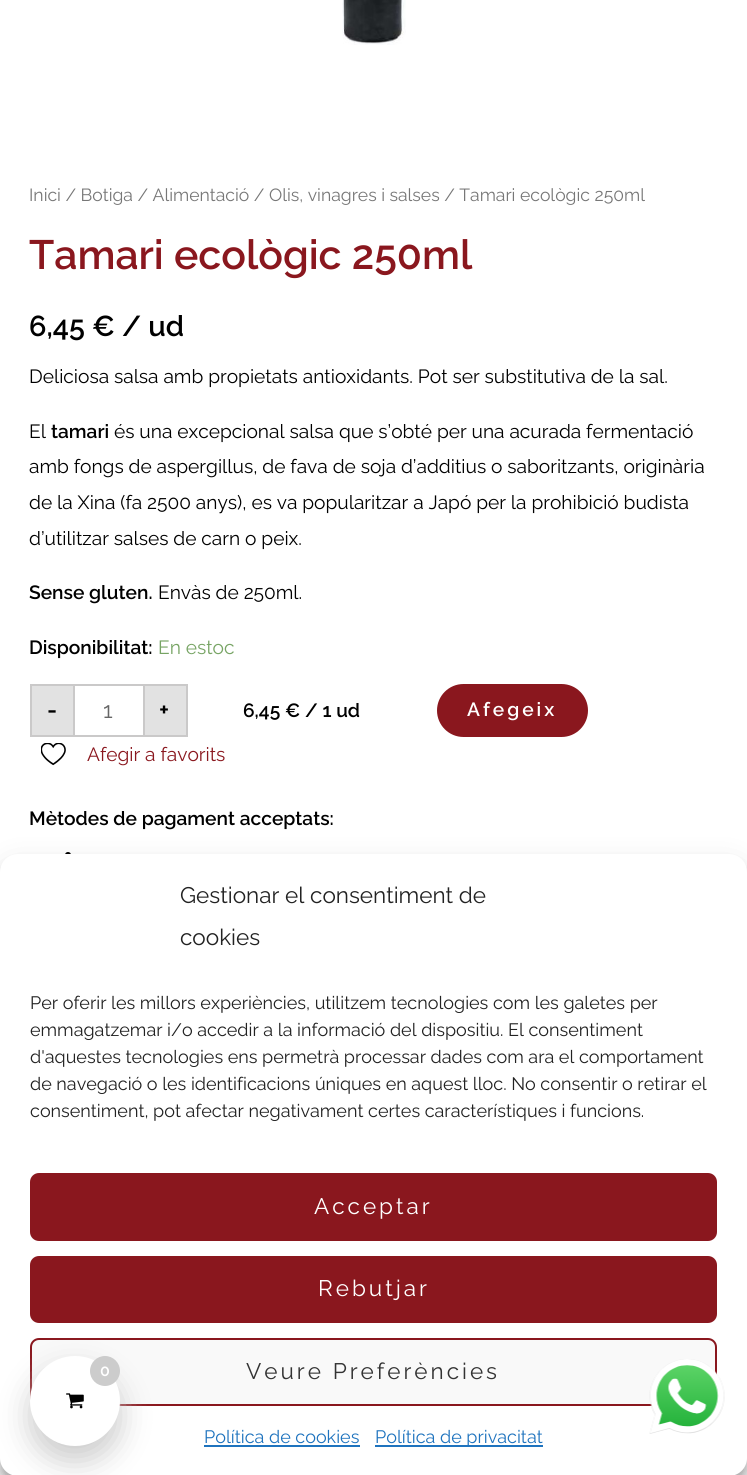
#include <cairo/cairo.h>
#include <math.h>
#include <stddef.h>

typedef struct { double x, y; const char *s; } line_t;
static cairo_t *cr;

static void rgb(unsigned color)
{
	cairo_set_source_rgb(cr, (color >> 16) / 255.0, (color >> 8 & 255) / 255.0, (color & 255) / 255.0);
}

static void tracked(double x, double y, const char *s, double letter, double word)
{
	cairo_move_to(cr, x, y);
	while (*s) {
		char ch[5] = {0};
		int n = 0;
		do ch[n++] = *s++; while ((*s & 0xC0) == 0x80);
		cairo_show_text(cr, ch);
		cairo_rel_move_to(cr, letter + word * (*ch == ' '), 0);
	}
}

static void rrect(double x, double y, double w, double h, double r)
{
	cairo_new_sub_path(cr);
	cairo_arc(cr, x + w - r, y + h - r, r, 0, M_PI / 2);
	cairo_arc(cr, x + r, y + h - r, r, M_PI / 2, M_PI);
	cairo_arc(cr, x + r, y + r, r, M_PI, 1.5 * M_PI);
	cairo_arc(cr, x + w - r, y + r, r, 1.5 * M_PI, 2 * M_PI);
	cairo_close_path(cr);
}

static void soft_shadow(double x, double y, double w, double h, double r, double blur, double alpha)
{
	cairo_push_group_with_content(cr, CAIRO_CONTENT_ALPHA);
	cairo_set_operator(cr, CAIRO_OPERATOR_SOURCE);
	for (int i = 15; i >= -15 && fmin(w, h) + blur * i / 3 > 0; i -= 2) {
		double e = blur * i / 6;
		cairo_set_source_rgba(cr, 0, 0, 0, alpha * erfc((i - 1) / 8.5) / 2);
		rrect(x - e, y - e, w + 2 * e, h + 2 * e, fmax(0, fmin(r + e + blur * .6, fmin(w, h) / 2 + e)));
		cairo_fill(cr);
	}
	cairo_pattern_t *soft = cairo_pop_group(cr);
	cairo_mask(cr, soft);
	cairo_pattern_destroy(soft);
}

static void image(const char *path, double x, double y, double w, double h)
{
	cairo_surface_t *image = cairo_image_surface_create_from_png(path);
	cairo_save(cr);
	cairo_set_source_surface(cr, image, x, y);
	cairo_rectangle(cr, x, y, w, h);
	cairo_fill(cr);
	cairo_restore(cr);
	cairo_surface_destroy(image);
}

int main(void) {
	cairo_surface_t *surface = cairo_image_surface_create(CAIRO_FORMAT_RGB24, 747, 1475);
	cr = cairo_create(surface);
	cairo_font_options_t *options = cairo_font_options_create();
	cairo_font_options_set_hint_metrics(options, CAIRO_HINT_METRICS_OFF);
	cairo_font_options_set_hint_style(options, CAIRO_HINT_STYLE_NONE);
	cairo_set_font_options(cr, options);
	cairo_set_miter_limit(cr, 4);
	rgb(0xffffff);
	cairo_paint(cr);
	image("img/1.png", 342, 0, 64, 45);
	rgb(0xe2e2e2);
	cairo_rectangle(cr, 31, 685, 43, 51);
	cairo_fill_preserve(cr);
	rgb(0xcac9c9);
	cairo_stroke(cr);
	cairo_rectangle(cr, 75, 684, 68, 2);
	cairo_fill(cr);
	cairo_rectangle(cr, 75, 735, 68, 2);
	cairo_fill(cr);
	rgb(0xe2e2e2);
	cairo_rectangle(cr, 144, 685, 43, 51);
	cairo_fill_preserve(cr);
	rgb(0xcac9c9);
	cairo_stroke(cr);
	rgb(0x8a171e);
	rrect(437, 684, 151, 53, 26.5);
	cairo_fill(cr);
	image("img/2.png", 41, 743, 25, 23);
	rgb(0x000000);
	cairo_arc(cr, 68, 855, 3, 0, 2 * M_PI);
	cairo_fill(cr);
	rgb(0x000000);
	soft_shadow(0, 863, 747, 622, 18, 4.5, 0.23);
	soft_shadow(0, 869, 747, 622, 18, 15, 0.19);
	rgb(0xffffff);
	rrect(0, 854, 747, 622, 18);
	cairo_fill(cr);
	rgb(0x8a171e);
	rrect(31, 1174, 685, 66, 8);
	cairo_fill_preserve(cr);
	cairo_stroke(cr);
	rrect(31, 1257, 685, 65, 8);
	cairo_fill_preserve(cr);
	cairo_stroke(cr);
	rgb(0xf9f9f9);
	rrect(31, 1339, 685, 66, 8);
	cairo_fill_preserve(cr);
	rgb(0x8a171e);
	cairo_stroke(cr);
	rgb(0x1e73be);
	cairo_rectangle(cr, 204, 1445, 156, 2);
	cairo_fill(cr);
	cairo_rectangle(cr, 375, 1445, 168, 2);
	cairo_fill(cr);
	rgb(0xcccccc);
	soft_shadow(30, 1371, 90, 90, 45, 15, 1);
	rgb(0xffffff);
	cairo_arc(cr, 75, 1401, 45, 0, 2 * M_PI);
	cairo_fill(cr);
	rgb(0xcccccc);
	cairo_arc(cr, 105, 1371, 15, 0, 2 * M_PI);
	cairo_fill(cr);
	image("img/3.png", 66, 1393, 18, 16);
	image("img/4.png", 649, 1359, 76, 75);
	cairo_select_font_face(cr, "Raleway", CAIRO_FONT_SLANT_NORMAL, CAIRO_FONT_WEIGHT_NORMAL);
	cairo_set_font_size(cr, 17.6);
	rgb(0x777777);
	cairo_move_to(cr, 29, 201);
	cairo_show_text(cr, "Inici / Botiga / Alimentació / Olis, vinagres i salses / Tamari ecològic 250ml");
	cairo_select_font_face(cr, "Raleway SemiBold", CAIRO_FONT_SLANT_NORMAL, CAIRO_FONT_WEIGHT_NORMAL);
	cairo_set_font_size(cr, 41);
	rgb(0x8a171e);
	cairo_move_to(cr, 29, 269);
	cairo_show_text(cr, "Tamari ecològic 250ml");
	cairo_set_font_size(cr, 28.75);
	rgb(0x000000);
	cairo_move_to(cr, 29, 336);
	cairo_show_text(cr, "6,45 € / ud");
	cairo_select_font_face(cr, "Raleway", CAIRO_FONT_SLANT_NORMAL, CAIRO_FONT_WEIGHT_NORMAL);
	cairo_set_font_size(cr, 19.15);
	cairo_move_to(cr, 29, 383);
	cairo_show_text(cr, "Deliciosa salsa amb propietats antioxidants. Pot ser substitutiva de la sal.");
	cairo_move_to(cr, 29, 438);
	cairo_show_text(cr, "El");
	cairo_select_font_face(cr, "Raleway SemiBold", CAIRO_FONT_SLANT_NORMAL, CAIRO_FONT_WEIGHT_NORMAL);
	cairo_move_to(cr, 51, 438);
	cairo_show_text(cr, "tamari");
	cairo_select_font_face(cr, "Raleway", CAIRO_FONT_SLANT_NORMAL, CAIRO_FONT_WEIGHT_NORMAL);
	{
		static const line_t items[] = {
			{114, 438, "és una excepcional salsa que s’obté per una acurada fermentació"},
			{29, 473, "amb fongs de aspergillus, de fava de soja d’additius o saboritzants, originària"},
			{29, 509, "de la Xina (fa 2500 anys), es va popularitzar a Japó per la prohibició budista"},
			{29, 545, "d’utilitzar salses de carn o peix."},
		};
		for (size_t i = 0; i < sizeof items / sizeof *items; i++) {
			cairo_move_to(cr, items[i].x, items[i].y);
			cairo_show_text(cr, items[i].s);
		}
	}
	cairo_select_font_face(cr, "Raleway SemiBold", CAIRO_FONT_SLANT_NORMAL, CAIRO_FONT_WEIGHT_NORMAL);
	cairo_move_to(cr, 29, 599);
	cairo_show_text(cr, "Sense gluten.");
	cairo_select_font_face(cr, "Raleway", CAIRO_FONT_SLANT_NORMAL, CAIRO_FONT_WEIGHT_NORMAL);
	cairo_move_to(cr, 158, 599);
	cairo_show_text(cr, "Envàs de 250ml.");
	cairo_select_font_face(cr, "Raleway SemiBold", CAIRO_FONT_SLANT_NORMAL, CAIRO_FONT_WEIGHT_NORMAL);
	cairo_move_to(cr, 29, 654);
	cairo_show_text(cr, "Disponibilitat:");
	cairo_select_font_face(cr, "Raleway", CAIRO_FONT_SLANT_NORMAL, CAIRO_FONT_WEIGHT_NORMAL);
	rgb(0x77a464);
	cairo_move_to(cr, 158, 654);
	cairo_show_text(cr, "En estoc");
	cairo_select_font_face(cr, "Raleway SemiBold", CAIRO_FONT_SLANT_NORMAL, CAIRO_FONT_WEIGHT_NORMAL);
	cairo_set_font_size(cr, 24);
	rgb(0x000000);
	cairo_move_to(cr, 47, 718);
	cairo_show_text(cr, "-");
	cairo_select_font_face(cr, "Raleway", CAIRO_FONT_SLANT_NORMAL, CAIRO_FONT_WEIGHT_NORMAL);
	cairo_set_font_size(cr, 22.5);
	rgb(0x666666);
	cairo_move_to(cr, 103, 718);
	cairo_show_text(cr, "1");
	cairo_select_font_face(cr, "Raleway SemiBold", CAIRO_FONT_SLANT_NORMAL, CAIRO_FONT_WEIGHT_NORMAL);
	cairo_set_font_size(cr, 24);
	rgb(0x000000);
	cairo_move_to(cr, 159, 718);
	cairo_show_text(cr, "+");
	cairo_set_font_size(cr, 19.15);
	cairo_move_to(cr, 243, 717);
	cairo_show_text(cr, "6,45 € / 1 ud");
	rgb(0xffffff);
	tracked(467, 716, "Afegeix", 3, 0);
	cairo_select_font_face(cr, "Raleway", CAIRO_FONT_SLANT_NORMAL, CAIRO_FONT_WEIGHT_NORMAL);
	rgb(0x8a171e);
	cairo_move_to(cr, 87, 761);
	cairo_show_text(cr, "Afegir a favorits");
	cairo_select_font_face(cr, "Raleway SemiBold", CAIRO_FONT_SLANT_NORMAL, CAIRO_FONT_WEIGHT_NORMAL);
	rgb(0x000000);
	cairo_move_to(cr, 29, 825);
	cairo_show_text(cr, "Mètodes de pagament acceptats:");
	cairo_select_font_face(cr, "Raleway", CAIRO_FONT_SLANT_NORMAL, CAIRO_FONT_WEIGHT_NORMAL);
	cairo_set_font_size(cr, 22.5);
	rgb(0x222222);
	cairo_move_to(cr, 180, 903);
	cairo_show_text(cr, "Gestionar el consentiment de");
	cairo_move_to(cr, 180, 945);
	cairo_show_text(cr, "cookies");
	cairo_set_font_size(cr, 18);
	{
		static const line_t items[] = {
			{30, 1009, "Per oferir les millors experiències, utilitzem tecnologies com les galetes per"},
			{30, 1036, "emmagatzemar i/o accedir a la informació del dispositiu. El consentiment"},
			{30, 1063, "d'aquestes tecnologies ens permetrà processar dades com ara el comportament"},
			{30, 1090, "de navegació o les identificacions úniques en aquest lloc. No consentir o retirar el"},
			{30, 1117, "consentiment, pot afectar negativament certes característiques i funcions."},
		};
		for (size_t i = 0; i < sizeof items / sizeof *items; i++) {
			cairo_move_to(cr, items[i].x, items[i].y);
			cairo_show_text(cr, items[i].s);
		}
	}
	cairo_set_font_size(cr, 22.5);
	rgb(0xffffff);
	tracked(314, 1214, "Acceptar", 3, 0);
	tracked(318, 1296, "Rebutjar", 3, 0);
	rgb(0x333333);
	tracked(246, 1379, "Veure Preferències", 3, 0);
	cairo_set_font_size(cr, 18);
	rgb(0x1e73be);
	cairo_move_to(cr, 204, 1443);
	cairo_show_text(cr, "Política de cookies");
	cairo_move_to(cr, 375, 1443);
	cairo_show_text(cr, "Política de privacitat");
	cairo_select_font_face(cr, "Raleway SemiBold", CAIRO_FONT_SLANT_NORMAL, CAIRO_FONT_WEIGHT_NORMAL);
	cairo_set_font_size(cr, 16);
	rgb(0xffffff);
	cairo_move_to(cr, 100, 1376);
	cairo_show_text(cr, "0");
	cairo_surface_write_to_png(surface, "page.png");
	cairo_font_options_destroy(options);
	cairo_destroy(cr);
	cairo_surface_destroy(surface);
	return 0;
}
